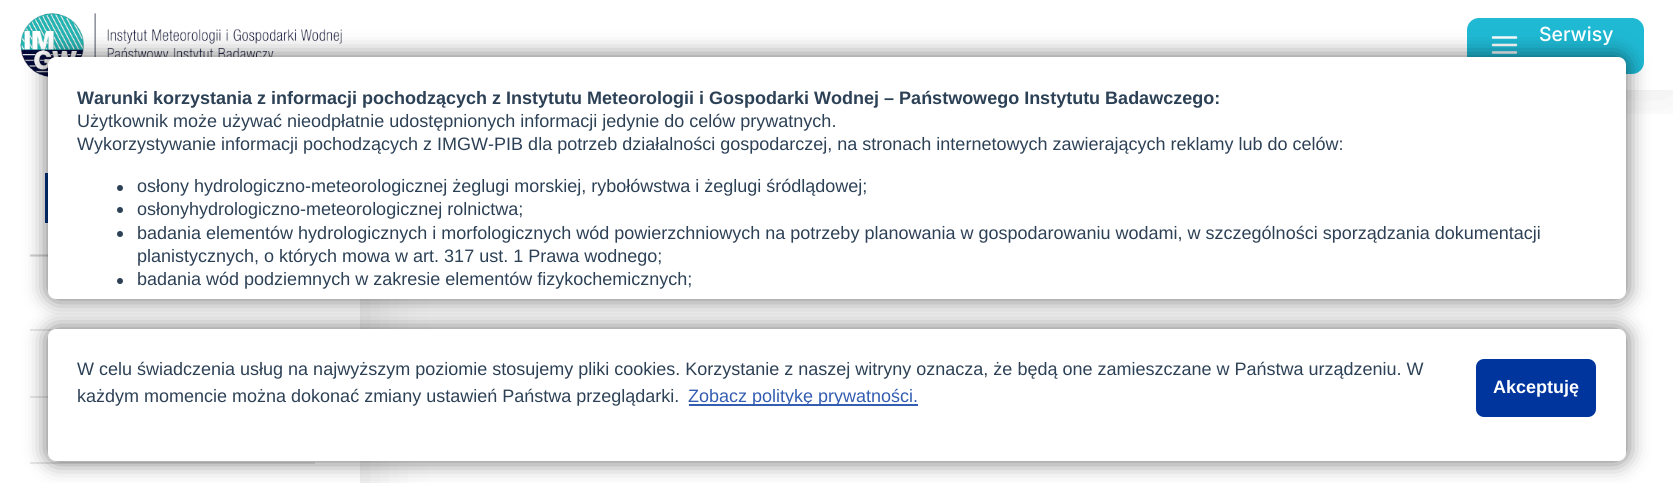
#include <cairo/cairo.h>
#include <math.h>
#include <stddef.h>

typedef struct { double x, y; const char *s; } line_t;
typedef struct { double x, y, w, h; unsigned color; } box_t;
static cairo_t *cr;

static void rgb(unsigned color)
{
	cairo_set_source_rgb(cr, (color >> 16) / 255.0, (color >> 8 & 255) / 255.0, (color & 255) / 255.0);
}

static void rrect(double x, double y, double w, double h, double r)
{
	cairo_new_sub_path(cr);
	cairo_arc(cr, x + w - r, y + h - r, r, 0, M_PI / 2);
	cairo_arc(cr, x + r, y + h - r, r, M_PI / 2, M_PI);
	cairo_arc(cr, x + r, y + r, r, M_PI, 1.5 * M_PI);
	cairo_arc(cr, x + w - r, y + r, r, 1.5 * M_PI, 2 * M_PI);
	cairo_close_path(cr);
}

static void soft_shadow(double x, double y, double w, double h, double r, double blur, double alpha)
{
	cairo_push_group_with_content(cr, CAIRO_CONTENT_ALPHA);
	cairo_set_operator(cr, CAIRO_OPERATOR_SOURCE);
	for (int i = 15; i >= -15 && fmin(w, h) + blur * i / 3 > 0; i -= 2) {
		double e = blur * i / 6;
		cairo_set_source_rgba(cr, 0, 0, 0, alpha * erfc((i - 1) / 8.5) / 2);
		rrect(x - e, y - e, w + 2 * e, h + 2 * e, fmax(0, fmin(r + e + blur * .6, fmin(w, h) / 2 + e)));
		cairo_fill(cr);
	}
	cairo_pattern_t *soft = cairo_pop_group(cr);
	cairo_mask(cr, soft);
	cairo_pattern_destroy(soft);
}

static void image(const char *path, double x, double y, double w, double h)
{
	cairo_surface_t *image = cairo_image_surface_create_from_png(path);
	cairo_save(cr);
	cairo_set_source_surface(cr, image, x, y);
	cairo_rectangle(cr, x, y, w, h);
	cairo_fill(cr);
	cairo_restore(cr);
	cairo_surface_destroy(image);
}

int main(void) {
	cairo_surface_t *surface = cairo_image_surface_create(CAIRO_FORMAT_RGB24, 1673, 483);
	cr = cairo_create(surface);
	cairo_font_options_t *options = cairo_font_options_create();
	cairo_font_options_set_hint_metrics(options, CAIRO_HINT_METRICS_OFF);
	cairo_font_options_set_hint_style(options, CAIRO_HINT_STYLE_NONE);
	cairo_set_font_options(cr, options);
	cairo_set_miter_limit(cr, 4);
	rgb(0xffffff);
	cairo_paint(cr);
	cairo_save(cr);
	cairo_rectangle(cr, 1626, 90, 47, 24);
	cairo_clip(cr);
	rgb(0x000000);
	soft_shadow(0, 6, 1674, 90, 0, 28.5, 0.08);
	cairo_restore(cr);
	image("img/1.png", 20, 13, 322, 64);
	rgb(0x1fb9d4);
	rrect(1467, 18, 177, 56, 12);
	cairo_fill(cr);
	cairo_new_path(cr);
	cairo_move_to(cr, 1493, 45);
	cairo_line_to(cr, 1516, 45);
	cairo_move_to(cr, 1493, 37.5);
	cairo_line_to(cr, 1516, 37.5);
	cairo_move_to(cr, 1493, 52.5);
	cairo_line_to(cr, 1516, 52.5);
	rgb(0xffffff);
	cairo_set_line_width(cr, 2.5);
	cairo_set_line_cap(cr, CAIRO_LINE_CAP_ROUND);
	cairo_set_line_join(cr, CAIRO_LINE_JOIN_ROUND);
	cairo_stroke(cr);
	rgb(0x000000);
	soft_shadow(15, 147, 360, 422, 0, 28.5, 0.1);
	{
		static const box_t items[] = {
			{0, 90, 360, 393, 0xffffff},
			{30, 254, 18, 1, 0xe6e6e6},
			{30, 256, 18, 1, 0xe6e6e6},
			{30, 255, 18, 1, 0xcfcfcf},
		};
		for (size_t i = 0; i < sizeof items / sizeof *items; i++) {
			rgb(items[i].color);
			cairo_rectangle(cr, items[i].x, items[i].y, items[i].w, items[i].h);
			cairo_fill(cr);
		}
	}
	image("img/2.png", 45, 173, 3, 50);
	{
		static const box_t items[] = {
			{30, 329, 26, 2, 0xe6e6e6},
			{30, 396, 18, 2, 0xe6e6e6},
			{30, 462, 285, 2, 0xe6e6e6},
		};
		for (size_t i = 0; i < sizeof items / sizeof *items; i++) {
			rgb(items[i].color);
			cairo_rectangle(cr, items[i].x, items[i].y, items[i].w, items[i].h);
			cairo_fill(cr);
		}
	}
	rgb(0x000000);
	soft_shadow(48, 57, 1578, 242, 8, 11, 0.6);
	rgb(0xffffff);
	rrect(48, 57, 1578, 242, 8);
	cairo_fill(cr);
	rgb(0x2d4156);
	cairo_arc(cr, 120, 188, 3, 0, 2 * M_PI);
	cairo_fill(cr);
	cairo_arc(cr, 120, 210, 3, 0, 2 * M_PI);
	cairo_fill(cr);
	cairo_arc(cr, 120, 234, 3, 0, 2 * M_PI);
	cairo_fill(cr);
	cairo_arc(cr, 120, 281, 3, 0, 2 * M_PI);
	cairo_fill(cr);
	rgb(0x000000);
	soft_shadow(48, 329, 1578, 132, 8, 11, 0.6);
	rgb(0xffffff);
	rrect(48, 329, 1578, 132, 8);
	cairo_fill(cr);
	rgb(0x335db1);
	cairo_rectangle(cr, 689, 404, 229, 2);
	cairo_fill(cr);
	rgb(0x00359e);
	rrect(1476, 359, 120, 58, 8);
	cairo_fill(cr);
	cairo_select_font_face(cr, "Inter Medium", CAIRO_FONT_SLANT_NORMAL, CAIRO_FONT_WEIGHT_NORMAL);
	cairo_set_font_size(cr, 19.5);
	rgb(0xffffff);
	cairo_move_to(cr, 1539, 41);
	cairo_show_text(cr, "Serwisy");
	cairo_select_font_face(cr, "Liberation Sans", CAIRO_FONT_SLANT_NORMAL, CAIRO_FONT_WEIGHT_BOLD);
	cairo_set_font_size(cr, 18);
	rgb(0x2d4156);
	cairo_move_to(cr, 77, 104);
	cairo_show_text(cr, "Warunki korzystania z informacji pochodzących z Instytutu Meteorologii i Gospodarki Wodnej – Państwowego Instytutu Badawczego:");
	cairo_select_font_face(cr, "Liberation Sans", CAIRO_FONT_SLANT_NORMAL, CAIRO_FONT_WEIGHT_NORMAL);
	{
		static const line_t items[] = {
			{77, 127, "Użytkownik może używać nieodpłatnie udostępnionych informacji jedynie do celów prywatnych."},
			{77, 150, "Wykorzystywanie informacji pochodzących z IMGW-PIB dla potrzeb działalności gospodarczej, na stronach internetowych zawierających reklamy lub do celów:"},
			{137, 192, "osłony hydrologiczno-meteorologicznej żeglugi morskiej, rybołówstwa i żeglugi śródlądowej;"},
			{137, 215, "osłonyhydrologiczno-meteorologicznej rolnictwa;"},
			{137, 239, "badania elementów hydrologicznych i morfologicznych wód powierzchniowych na potrzeby planowania w gospodarowaniu wodami, w szczególności sporządzania dokumentacji"},
			{137, 262, "planistycznych, o których mowa w art. 317 ust. 1 Prawa wodnego;"},
			{137, 285, "badania wód podziemnych w zakresie elementów fizykochemicznych;"},
			{77, 375, "W celu świadczenia usług na najwyższym poziomie stosujemy pliki cookies. Korzystanie z naszej witryny oznacza, że będą one zamieszczane w Państwa urządzeniu. W"},
			{77, 402, "każdym momencie można dokonać zmiany ustawień Państwa przeglądarki."},
		};
		for (size_t i = 0; i < sizeof items / sizeof *items; i++) {
			cairo_move_to(cr, items[i].x, items[i].y);
			cairo_show_text(cr, items[i].s);
		}
	}
	rgb(0x335db1);
	cairo_move_to(cr, 688, 402);
	cairo_show_text(cr, "Zobacz politykę prywatności.");
	cairo_select_font_face(cr, "Liberation Sans", CAIRO_FONT_SLANT_NORMAL, CAIRO_FONT_WEIGHT_BOLD);
	rgb(0xffffff);
	cairo_move_to(cr, 1493, 393);
	cairo_show_text(cr, "Akceptuję");
	cairo_surface_write_to_png(surface, "page.png");
	cairo_font_options_destroy(options);
	cairo_destroy(cr);
	cairo_surface_destroy(surface);
	return 0;
}
